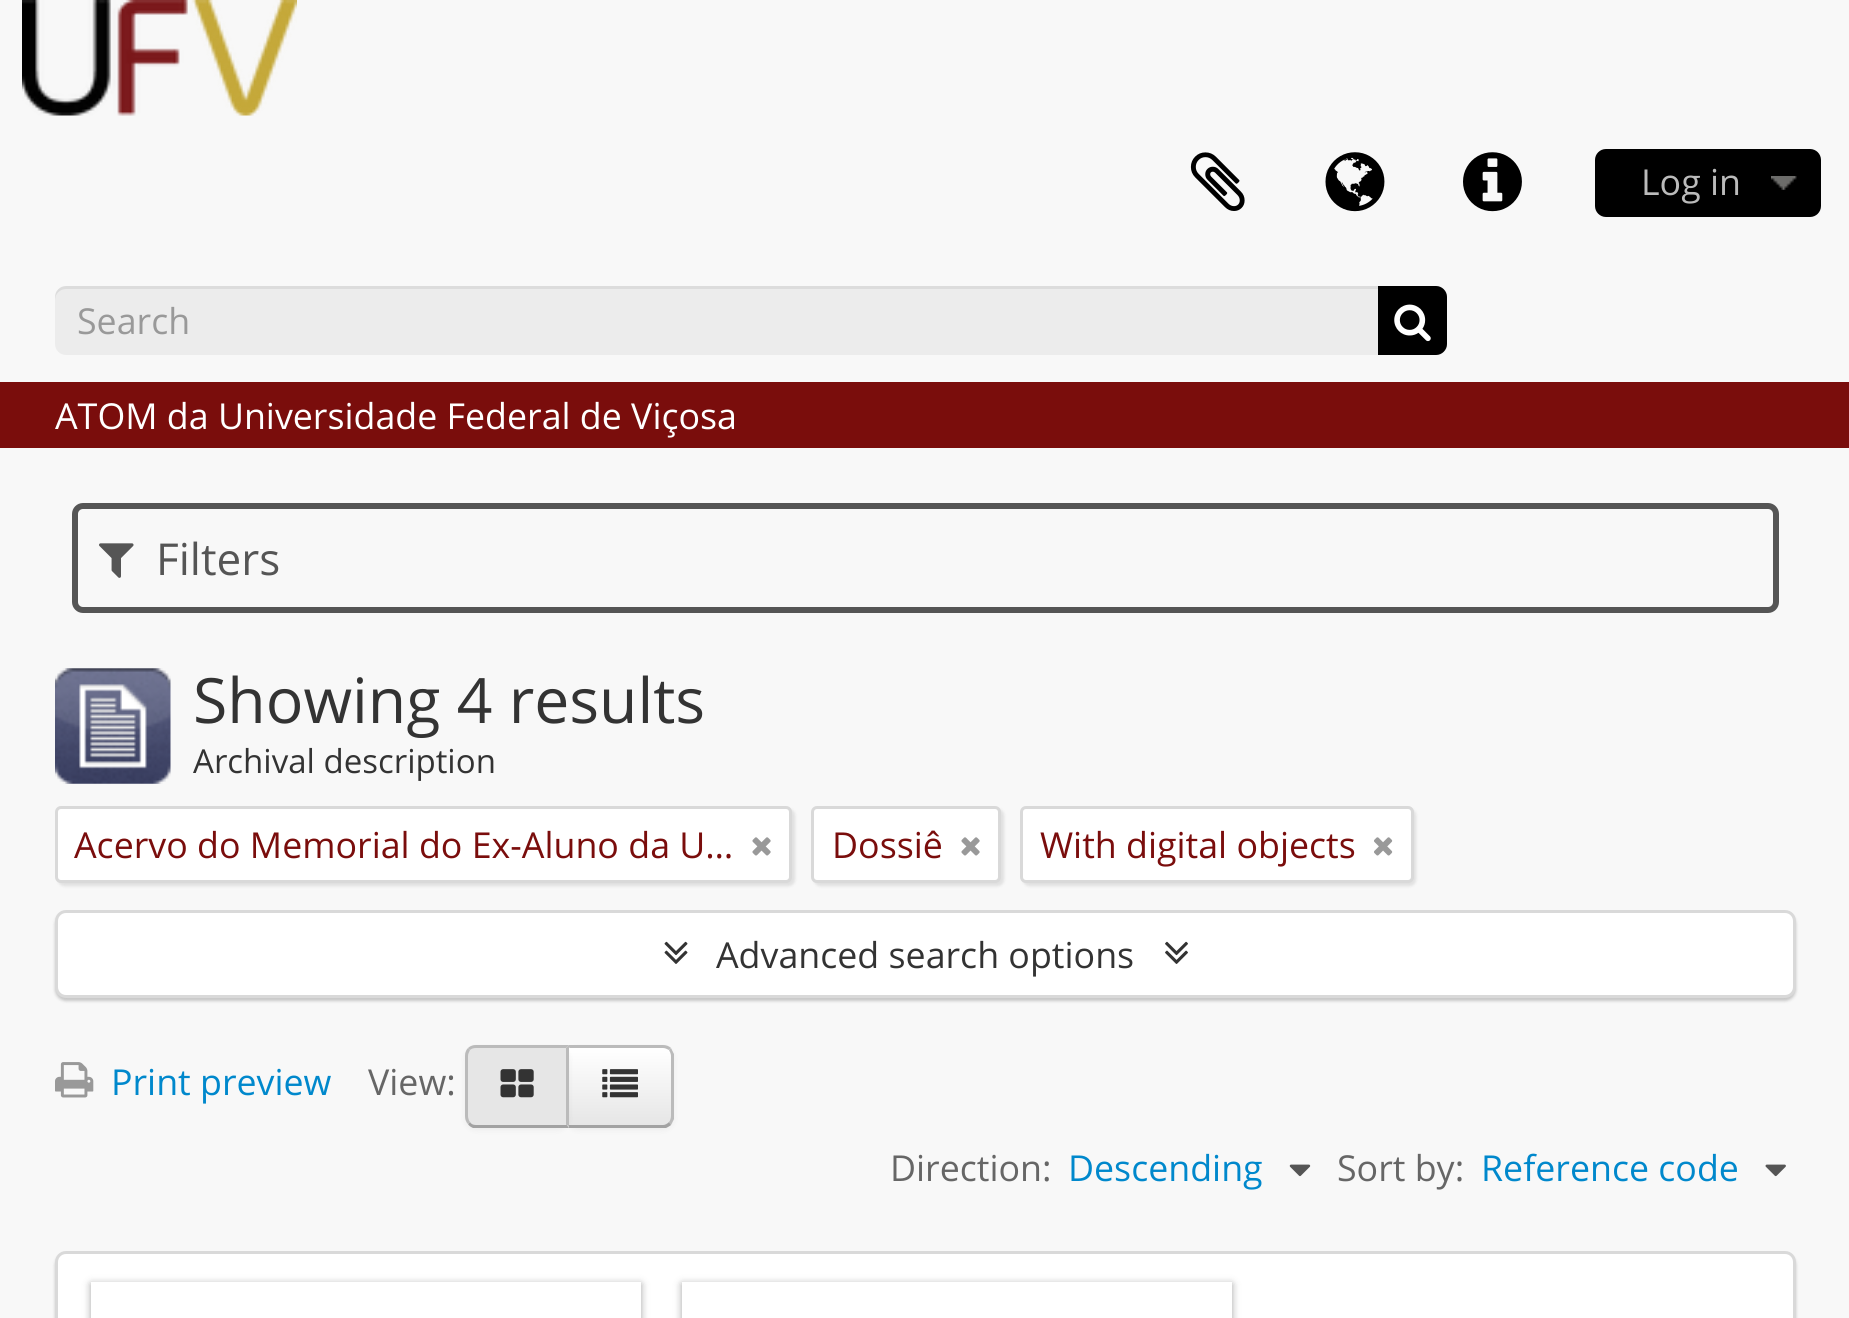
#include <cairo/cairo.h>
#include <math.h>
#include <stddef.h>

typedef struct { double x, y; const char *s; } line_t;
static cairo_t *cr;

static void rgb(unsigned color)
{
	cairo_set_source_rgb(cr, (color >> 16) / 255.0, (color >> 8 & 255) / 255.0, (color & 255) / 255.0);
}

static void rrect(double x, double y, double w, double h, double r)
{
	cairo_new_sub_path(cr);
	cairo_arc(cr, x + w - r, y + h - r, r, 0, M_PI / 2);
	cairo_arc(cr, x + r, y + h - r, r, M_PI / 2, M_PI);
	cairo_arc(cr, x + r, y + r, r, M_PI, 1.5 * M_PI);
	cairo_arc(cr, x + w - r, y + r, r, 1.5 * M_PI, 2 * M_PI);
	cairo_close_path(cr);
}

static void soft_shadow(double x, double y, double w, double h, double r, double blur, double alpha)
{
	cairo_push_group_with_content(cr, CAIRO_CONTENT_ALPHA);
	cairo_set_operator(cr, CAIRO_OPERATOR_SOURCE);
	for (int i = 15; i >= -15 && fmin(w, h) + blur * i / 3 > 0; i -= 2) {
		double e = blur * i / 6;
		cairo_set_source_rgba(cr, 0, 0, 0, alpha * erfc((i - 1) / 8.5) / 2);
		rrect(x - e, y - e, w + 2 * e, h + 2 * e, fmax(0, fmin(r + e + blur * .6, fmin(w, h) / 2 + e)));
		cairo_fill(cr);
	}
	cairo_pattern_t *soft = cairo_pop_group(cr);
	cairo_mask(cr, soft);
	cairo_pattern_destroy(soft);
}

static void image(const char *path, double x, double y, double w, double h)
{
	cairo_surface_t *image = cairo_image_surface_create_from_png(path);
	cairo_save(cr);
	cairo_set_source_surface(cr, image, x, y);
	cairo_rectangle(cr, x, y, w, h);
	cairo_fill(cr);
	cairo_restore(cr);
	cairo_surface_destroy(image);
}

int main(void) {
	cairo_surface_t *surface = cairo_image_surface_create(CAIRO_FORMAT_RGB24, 1849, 1318);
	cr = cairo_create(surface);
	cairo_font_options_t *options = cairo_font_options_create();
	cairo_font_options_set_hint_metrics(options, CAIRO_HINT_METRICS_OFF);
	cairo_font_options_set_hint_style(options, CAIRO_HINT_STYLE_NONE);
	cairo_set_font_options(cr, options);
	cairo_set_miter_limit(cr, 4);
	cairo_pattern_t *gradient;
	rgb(0xf8f8f8);
	cairo_paint(cr);
	image("img/1.png", 22, 0, 275, 116);
	image("img/2.png", 1190, 152, 55, 59);
	image("img/3.png", 1325, 152, 60, 60);
	image("img/4.png", 1463, 152, 59, 60);
	rgb(0x000000);
	rrect(1595, 149, 226, 68, 11);
	cairo_fill(cr);
	image("img/5.png", 1771, 176, 26, 14);
	rgb(0xececec);
	rrect(55, 286, 1392, 69, 11);
	cairo_fill(cr);
	cairo_set_source_rgba(cr, 0, 0, 0, 0.07);
	cairo_new_path(cr);
	cairo_move_to(cr, 66, 289);
	cairo_line_to(cr, 1436, 289);
	cairo_curve_to(cr, 1442, 289, 1446, 294, 1446, 300);
	cairo_line_to(cr, 1446, 349);
	cairo_curve_to(cr, 1447, 348, 1447, 346, 1447, 344);
	cairo_line_to(cr, 1447, 297);
	cairo_curve_to(cr, 1447, 291, 1442, 286, 1436, 286);
	cairo_line_to(cr, 66, 286);
	cairo_curve_to(cr, 60, 286, 55, 291, 55, 297);
	cairo_line_to(cr, 55, 300);
	cairo_curve_to(cr, 55, 294, 60, 289, 66, 289);
	cairo_close_path(cr);
	cairo_fill(cr);
	rgb(0x000000);
	cairo_new_path(cr);
	cairo_move_to(cr, 1378, 286);
	cairo_line_to(cr, 1436, 286);
	cairo_curve_to(cr, 1442, 286, 1447, 291, 1447, 297);
	cairo_line_to(cr, 1447, 344);
	cairo_curve_to(cr, 1447, 350, 1442, 355, 1436, 355);
	cairo_line_to(cr, 1378, 355);
	cairo_close_path(cr);
	cairo_fill(cr);
	image("img/6.png", 1394, 304, 37, 38);
	rgb(0x7a0d0c);
	cairo_rectangle(cr, 0, 382, 1849, 66);
	cairo_fill(cr);
	rrect(75, 506, 1701, 104, 8);
	rgb(0x555555);
	cairo_set_line_width(cr, 6);
	cairo_stroke(cr);
	image("img/7.png", 99, 543, 35, 35);
	image("img/8.png", 55, 668, 116, 116);
	rgb(0x000000);
	soft_shadow(58, 809, 737, 77, 6, 1.5, 0.1);
	rgb(0xffffff);
	rrect(56.5, 807.5, 734, 74, 4.5);
	cairo_fill_preserve(cr);
	rgb(0xd9d9d9);
	cairo_set_line_width(cr, 3);
	cairo_stroke(cr);
	image("img/9.png", 752, 837, 19, 19);
	rgb(0x000000);
	soft_shadow(814, 809, 190, 77, 6, 1.5, 0.1);
	rgb(0xffffff);
	rrect(812.5, 807.5, 187, 74, 4.5);
	cairo_fill_preserve(cr);
	rgb(0xd9d9d9);
	cairo_stroke(cr);
	image("img/9.png", 961, 837, 19, 19);
	rgb(0x000000);
	soft_shadow(1023, 809, 393, 77, 6, 1.5, 0.1);
	rgb(0xffffff);
	rrect(1021.5, 807.5, 391, 74, 4.5);
	cairo_fill_preserve(cr);
	rgb(0xd9d9d9);
	cairo_stroke(cr);
	image("img/10.png", 1374, 837, 19, 19);
	rgb(0x000000);
	soft_shadow(55, 913, 1741, 88, 11, 1.5, 0.2);
	rgb(0xffffff);
	rrect(56.5, 911.5, 1738, 85, 9.5);
	cairo_fill_preserve(cr);
	rgb(0xd9d9d9);
	cairo_stroke(cr);
	image("img/11.png", 664, 941, 24, 23);
	image("img/12.png", 1165, 941, 23, 23);
	image("img/13.png", 55, 1062, 39, 36);
	rgb(0x000000);
	soft_shadow(567, 1048, 107, 82, 11, 3, 0.05);
	cairo_save(cr);
	cairo_new_path(cr);
	cairo_move_to(cr, 567, 1045);
	cairo_line_to(cr, 663, 1045);
	cairo_curve_to(cr, 669, 1045, 674, 1050, 674, 1056);
	cairo_line_to(cr, 674, 1117);
	cairo_curve_to(cr, 674, 1123, 669, 1128, 663, 1128);
	cairo_line_to(cr, 567, 1128);
	cairo_close_path(cr);
	cairo_clip(cr);
	gradient = cairo_pattern_create_linear(620, 1048, 620, 1125);
	cairo_pattern_add_color_stop_rgba(gradient, 0, 1, 1, 1, 1);
	cairo_pattern_add_color_stop_rgba(gradient, 1, 0.902, 0.902, 0.902, 1);
	cairo_set_source(cr, gradient);
	cairo_pattern_destroy(gradient);
	cairo_rectangle(cr, 569, 1048, 105, 77);
	cairo_fill(cr);
	cairo_restore(cr);
	rgb(0xbbbbbb);
	cairo_new_path(cr);
	cairo_move_to(cr, 566, 1045);
	cairo_line_to(cr, 570, 1048);
	cairo_line_to(cr, 663, 1048);
	cairo_curve_to(cr, 665, 1048, 667, 1049, 669, 1050);
	cairo_line_to(cr, 671, 1048);
	cairo_curve_to(cr, 669, 1046, 666, 1045, 663, 1045);
	cairo_close_path(cr);
	cairo_fill(cr);
	cairo_new_path(cr);
	cairo_move_to(cr, 674, 1119);
	cairo_curve_to(cr, 673, 1121, 672, 1123, 671, 1125);
	cairo_line_to(cr, 669, 1122);
	cairo_curve_to(cr, 670, 1121, 671, 1118, 671, 1116);
	cairo_line_to(cr, 671, 1056);
	cairo_curve_to(cr, 671, 1054, 670, 1052, 669, 1050);
	cairo_line_to(cr, 671, 1048);
	cairo_curve_to(cr, 672, 1050, 673, 1052, 674, 1054);
	cairo_close_path(cr);
	cairo_fill(cr);
	rgb(0xa2a2a2);
	cairo_new_path(cr);
	cairo_move_to(cr, 671, 1125);
	cairo_curve_to(cr, 670, 1126, 668, 1127, 666, 1128);
	cairo_line_to(cr, 566, 1128);
	cairo_line_to(cr, 569, 1125);
	cairo_line_to(cr, 663, 1125);
	cairo_curve_to(cr, 665, 1125, 667, 1124, 669, 1122);
	cairo_close_path(cr);
	cairo_fill(cr);
	rgb(0xbbbbbb);
	cairo_new_path(cr);
	cairo_move_to(cr, 569, 1048);
	cairo_line_to(cr, 570, 1048);
	cairo_line_to(cr, 566, 1045);
	cairo_line_to(cr, 566, 1128);
	cairo_line_to(cr, 569, 1125);
	cairo_close_path(cr);
	cairo_fill(cr);
	rgb(0x000000);
	soft_shadow(465, 1048, 104, 82, 11, 3, 0.05);
	rgb(0xe6e6e6);
	cairo_new_path(cr);
	cairo_move_to(cr, 476, 1045);
	cairo_line_to(cr, 569, 1045);
	cairo_line_to(cr, 569, 1128);
	cairo_line_to(cr, 476, 1128);
	cairo_curve_to(cr, 470, 1128, 465, 1123, 465, 1117);
	cairo_line_to(cr, 465, 1056);
	cairo_curve_to(cr, 465, 1050, 470, 1045, 476, 1045);
	cairo_close_path(cr);
	cairo_fill(cr);
	rgb(0xbbbbbb);
	cairo_new_path(cr);
	cairo_move_to(cr, 476, 1045);
	cairo_curve_to(cr, 473, 1045, 470, 1046, 468, 1048);
	cairo_line_to(cr, 470, 1050);
	cairo_curve_to(cr, 471, 1049, 473, 1048, 476, 1048);
	cairo_line_to(cr, 566, 1048);
	cairo_line_to(cr, 569, 1045);
	cairo_close_path(cr);
	cairo_fill(cr);
	cairo_new_path(cr);
	cairo_move_to(cr, 569, 1045);
	cairo_line_to(cr, 569, 1127);
	cairo_line_to(cr, 566, 1124);
	cairo_line_to(cr, 566, 1048);
	cairo_close_path(cr);
	cairo_fill(cr);
	rgb(0xa2a2a2);
	cairo_new_path(cr);
	cairo_move_to(cr, 473, 1128);
	cairo_curve_to(cr, 471, 1127, 469, 1126, 468, 1124);
	cairo_line_to(cr, 470, 1122);
	cairo_curve_to(cr, 471, 1124, 473, 1125, 476, 1125);
	cairo_line_to(cr, 566, 1125);
	cairo_line_to(cr, 566, 1124);
	cairo_line_to(cr, 569, 1128);
	cairo_close_path(cr);
	cairo_fill(cr);
	rgb(0xbbbbbb);
	cairo_new_path(cr);
	cairo_move_to(cr, 468, 1048);
	cairo_curve_to(cr, 466, 1050, 465, 1053, 465, 1056);
	cairo_line_to(cr, 465, 1116);
	cairo_curve_to(cr, 465, 1119, 466, 1122, 468, 1124);
	cairo_line_to(cr, 470, 1122);
	cairo_curve_to(cr, 469, 1121, 468, 1118, 468, 1116);
	cairo_line_to(cr, 468, 1056);
	cairo_curve_to(cr, 468, 1054, 469, 1052, 470, 1050);
	cairo_close_path(cr);
	cairo_fill(cr);
	image("img/14.png", 500, 1069, 34, 29);
	image("img/15.png", 602, 1069, 36, 29);
	image("img/16.png", 1289, 1164, 22, 13);
	image("img/17.png", 1765, 1164, 21, 13);
	rgb(0x000000);
	soft_shadow(55, 1254, 1741, 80, 11, 1.5, 0.2);
	rgb(0xffffff);
	rrect(56.5, 1252.5, 1738, 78, 9.5);
	cairo_fill_preserve(cr);
	rgb(0xd9d9d9);
	cairo_stroke(cr);
	rgb(0x191919);
	soft_shadow(91, 1284, 550, 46, 0, 4, 0.4);
	rgb(0xffffff);
	cairo_rectangle(cr, 91, 1282, 550, 36);
	cairo_fill(cr);
	cairo_save(cr);
	cairo_set_fill_rule(cr, CAIRO_FILL_RULE_EVEN_ODD);
	cairo_new_path(cr);
	cairo_move_to(cr, 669, 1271);
	cairo_line_to(cr, 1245, 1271);
	cairo_line_to(cr, 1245, 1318);
	cairo_line_to(cr, 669, 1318);
	cairo_close_path(cr);
	cairo_move_to(cr, 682, 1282);
	cairo_line_to(cr, 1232, 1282);
	cairo_line_to(cr, 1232, 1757);
	cairo_line_to(cr, 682, 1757);
	cairo_close_path(cr);
	cairo_clip(cr);
	rgb(0x191919);
	soft_shadow(682, 1284, 550, 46, 0, 4, 0.4);
	cairo_restore(cr);
	cairo_select_font_face(cr, "Open Sans", CAIRO_FONT_SLANT_NORMAL, CAIRO_FONT_WEIGHT_NORMAL);
	cairo_set_font_size(cr, 35.75);
	rgb(0xbbbbbb);
	cairo_move_to(cr, 1641, 195);
	cairo_show_text(cr, "Log in");
	rgb(0x999999);
	cairo_move_to(cr, 77, 334);
	cairo_show_text(cr, "Search");
	rgb(0xffffff);
	cairo_move_to(cr, 55, 429);
	cairo_show_text(cr, "ATOM da Universidade Federal de Viçosa");
	cairo_set_font_size(cr, 44);
	rgb(0x555555);
	cairo_move_to(cr, 156, 575);
	cairo_show_text(cr, "Filters");
	cairo_set_font_size(cr, 62.5);
	rgb(0x333333);
	cairo_move_to(cr, 193, 723);
	cairo_show_text(cr, "Showing 4 results");
	cairo_set_font_size(cr, 33);
	cairo_move_to(cr, 193, 773);
	cairo_show_text(cr, "Archival description");
	cairo_set_font_size(cr, 35.75);
	rgb(0x7a0d0c);
	{
		static const line_t items[] = {
			{74, 858, "Acervo do Memorial do Ex-Aluno da U…"},
			{832, 858, "Dossiê"},
			{1040, 858, "With digital objects"},
		};
		for (size_t i = 0; i < sizeof items / sizeof *items; i++) {
			cairo_move_to(cr, items[i].x, items[i].y);
			cairo_show_text(cr, items[i].s);
		}
	}
	rgb(0x333333);
	cairo_move_to(cr, 716, 968);
	cairo_show_text(cr, "Advanced search options");
	rgb(0x0088cc);
	cairo_move_to(cr, 111, 1095);
	cairo_show_text(cr, "Print preview");
	rgb(0x666666);
	cairo_move_to(cr, 368, 1095);
	cairo_show_text(cr, "View:");
	cairo_move_to(cr, 890, 1181);
	cairo_show_text(cr, "Direction:");
	rgb(0x0088cc);
	cairo_move_to(cr, 1068, 1181);
	cairo_show_text(cr, "Descending");
	rgb(0x666666);
	cairo_move_to(cr, 1337, 1181);
	cairo_show_text(cr, "Sort by:");
	rgb(0x0088cc);
	cairo_move_to(cr, 1481, 1181);
	cairo_show_text(cr, "Reference code");
	cairo_surface_write_to_png(surface, "page.png");
	cairo_font_options_destroy(options);
	cairo_destroy(cr);
	cairo_surface_destroy(surface);
	return 0;
}
